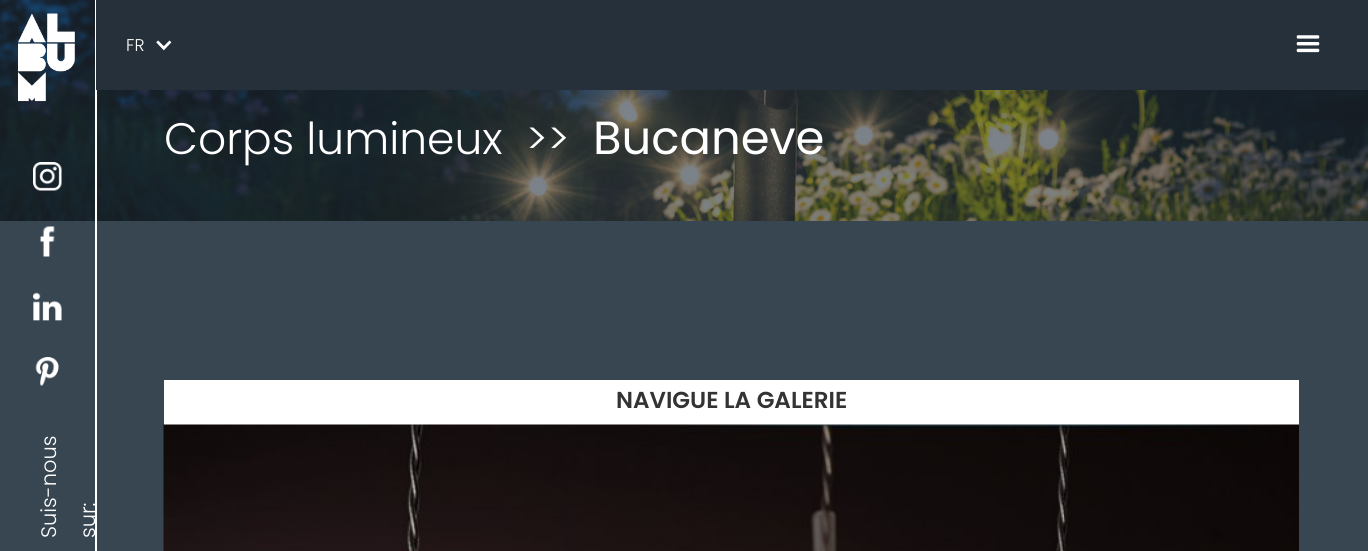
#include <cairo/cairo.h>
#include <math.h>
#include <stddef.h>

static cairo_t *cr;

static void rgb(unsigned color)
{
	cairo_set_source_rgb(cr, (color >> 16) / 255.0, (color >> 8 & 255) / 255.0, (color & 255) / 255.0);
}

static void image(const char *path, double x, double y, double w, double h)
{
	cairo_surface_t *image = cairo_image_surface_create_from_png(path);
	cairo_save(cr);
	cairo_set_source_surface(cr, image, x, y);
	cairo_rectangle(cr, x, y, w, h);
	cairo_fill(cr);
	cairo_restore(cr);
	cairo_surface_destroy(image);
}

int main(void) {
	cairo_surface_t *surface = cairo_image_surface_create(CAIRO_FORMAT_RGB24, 1368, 551);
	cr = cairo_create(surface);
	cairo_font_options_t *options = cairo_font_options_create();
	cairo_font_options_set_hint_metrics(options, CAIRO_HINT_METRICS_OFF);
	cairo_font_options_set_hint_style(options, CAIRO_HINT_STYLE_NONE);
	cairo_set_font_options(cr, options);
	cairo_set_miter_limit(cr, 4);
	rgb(0xffffff);
	cairo_paint(cr);
	image("img/1.png", 0, 0, 1368, 221);
	cairo_set_source_rgba(cr, 0.145, 0.188, 0.231, 0.6);
	cairo_rectangle(cr, 0, 0, 1368, 221);
	cairo_fill(cr);
	rgb(0x384652);
	cairo_rectangle(cr, 0, 221, 1368, 330);
	cairo_fill(cr);
	rgb(0xffffff);
	cairo_rectangle(cr, 95, 0, 2, 551);
	cairo_fill(cr);
	rgb(0x25303b);
	cairo_rectangle(cr, 96, 0, 1272, 90);
	cairo_fill(cr);
	image("img/2.png", 156, 40, 16, 11);
	image("img/3.png", 1296, 35, 24, 18);
	image("img/4.png", 18, 13, 57, 89);
	image("img/5.png", 33, 162, 29, 29);
	image("img/6.png", 40, 226, 15, 31);
	image("img/7.png", 33, 292, 29, 29);
	image("img/8.png", 35, 357, 24, 29);
	rgb(0xffffff);
	cairo_rectangle(cr, 164, 380, 1135, 45);
	cairo_fill(cr);
	image("img/9.png", 163, 424, 1136, 127);
	cairo_select_font_face(cr, "Poppins Light", CAIRO_FONT_SLANT_NORMAL, CAIRO_FONT_WEIGHT_NORMAL);
	cairo_set_font_size(cr, 17);
	cairo_move_to(cr, 126, 51);
	cairo_show_text(cr, "FR");
	cairo_set_font_size(cr, 21);
	cairo_save(cr);
	cairo_translate(cr, 56, 538);
	cairo_rotate(cr, -90 * M_PI / 180);
	cairo_move_to(cr, 0, 0);
	cairo_show_text(cr, "Suis-nous");
	cairo_restore(cr);
	cairo_save(cr);
	cairo_translate(cr, 95, 538);
	cairo_rotate(cr, -90 * M_PI / 180);
	cairo_move_to(cr, 0, 0);
	cairo_show_text(cr, "sur:");
	cairo_restore(cr);
	cairo_set_font_size(cr, 44);
	cairo_move_to(cr, 164, 154);
	cairo_show_text(cr, "Corps lumineux");
	cairo_move_to(cr, 526, 154);
	cairo_show_text(cr, ">>");
	cairo_select_font_face(cr, "Poppins", CAIRO_FONT_SLANT_NORMAL, CAIRO_FONT_WEIGHT_NORMAL);
	cairo_set_font_size(cr, 46.5);
	cairo_move_to(cr, 593, 154);
	cairo_show_text(cr, "Bucaneve");
	cairo_select_font_face(cr, "Poppins SemiBold", CAIRO_FONT_SLANT_NORMAL, CAIRO_FONT_WEIGHT_NORMAL);
	cairo_set_font_size(cr, 23.1);
	rgb(0x333333);
	cairo_move_to(cr, 616, 408);
	cairo_show_text(cr, "NAVIGUE LA GALERIE");
	cairo_surface_write_to_png(surface, "page.png");
	cairo_font_options_destroy(options);
	cairo_destroy(cr);
	cairo_surface_destroy(surface);
	return 0;
}
